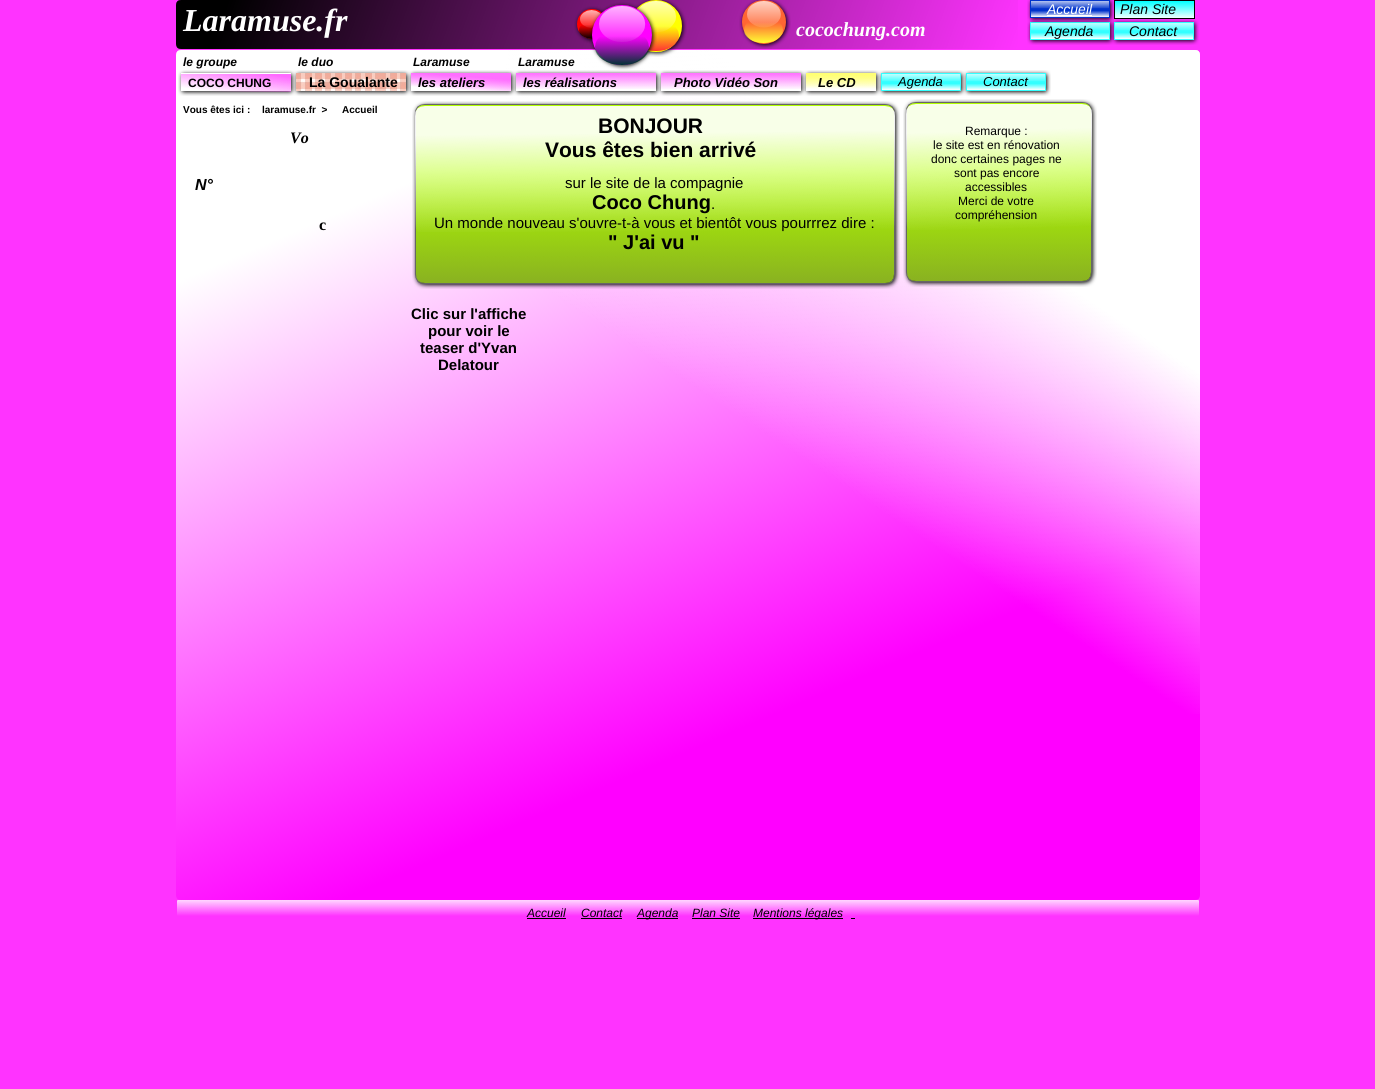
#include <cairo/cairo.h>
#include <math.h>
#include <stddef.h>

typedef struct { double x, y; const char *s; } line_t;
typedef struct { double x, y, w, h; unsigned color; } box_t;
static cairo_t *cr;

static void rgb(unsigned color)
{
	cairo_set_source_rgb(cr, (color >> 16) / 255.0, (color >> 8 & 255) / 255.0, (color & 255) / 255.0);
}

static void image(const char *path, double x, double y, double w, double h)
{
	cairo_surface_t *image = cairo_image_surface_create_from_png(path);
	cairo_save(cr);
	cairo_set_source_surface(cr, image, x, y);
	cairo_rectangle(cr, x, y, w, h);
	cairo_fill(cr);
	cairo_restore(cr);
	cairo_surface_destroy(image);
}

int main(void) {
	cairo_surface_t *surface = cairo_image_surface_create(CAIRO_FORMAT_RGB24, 1375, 1089);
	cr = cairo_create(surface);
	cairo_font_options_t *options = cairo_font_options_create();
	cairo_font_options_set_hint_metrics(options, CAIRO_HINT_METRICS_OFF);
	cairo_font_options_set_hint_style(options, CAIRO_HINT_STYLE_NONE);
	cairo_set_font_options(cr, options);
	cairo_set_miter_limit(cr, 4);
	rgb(0xff33ff);
	cairo_paint(cr);
	image("img/1.png", 176, 0, 842, 49);
	image("img/10.png", 176, 50, 1024, 850);
	image("img/11.png", 506, 50, 694, 664);
	image("img/3.png", 634, 0, 53, 57);
	image("img/7.png", 574, 6, 31, 38);
	image("img/2.png", 589, 2, 68, 68);
	image("img/4.png", 739, 0, 52, 49);
	image("img/8.png", 1027, 19, 88, 26);
	image("img/9.png", 1111, 19, 88, 26);
	image("img/5.png", 1027, 0, 87, 23);
	rgb(0xffffff);
	cairo_rectangle(cr, 1047, 15, 45, 1);
	cairo_fill(cr);
	image("img/6.png", 1114, 0, 81, 19);
	image("img/12.png", 178, 70, 118, 26);
	image("img/14.png", 408, 70, 108, 26);
	image("img/13.png", 293, 70, 118, 26);
	image("img/16.png", 658, 70, 148, 26);
	image("img/15.png", 513, 70, 148, 26);
	image("img/22.png", 878, 70, 88, 26);
	image("img/17.png", 803, 70, 78, 26);
	image("img/18.png", 181, 74, 110, 18);
	image("img/19.png", 411, 73, 100, 18);
	image("img/20.png", 516, 73, 140, 16);
	image("img/20.png", 661, 73, 140, 16);
	image("img/21.png", 806, 73, 70, 16);
	image("img/23.png", 963, 70, 88, 26);
	image("img/24.png", 412, 101, 488, 188);
	image("img/25.png", 903, 99, 194, 188);
	image("img/26.png", 415, 106, 480, 126);
	image("img/27.png", 906, 104, 186, 126);
	image("img/28.png", 177, 900, 1022, 16);
	{
		static const box_t items[] = {
			{527, 918, 39, 1, 0x000000},
			{581, 918, 41, 1, 0x000000},
			{637, 918, 41, 1, 0x000000},
			{692, 918, 48, 1, 0x000000},
			{753, 918, 90, 1, 0x000000},
			{851, 918, 4, 1, 0x000000},
		};
		for (size_t i = 0; i < sizeof items / sizeof *items; i++) {
			rgb(items[i].color);
			cairo_rectangle(cr, items[i].x, items[i].y, items[i].w, items[i].h);
			cairo_fill(cr);
		}
	}
	cairo_select_font_face(cr, "Liberation Sans", CAIRO_FONT_SLANT_ITALIC, CAIRO_FONT_WEIGHT_NORMAL);
	cairo_set_font_size(cr, 14);
	rgb(0xffffff);
	cairo_move_to(cr, 1047, 14);
	cairo_show_text(cr, "Accueil");
	rgb(0x000000);
	cairo_move_to(cr, 1120, 14);
	cairo_show_text(cr, "Plan Site");
	cairo_select_font_face(cr, "Liberation Serif", CAIRO_FONT_SLANT_ITALIC, CAIRO_FONT_WEIGHT_BOLD);
	cairo_set_font_size(cr, 32);
	rgb(0xffffff);
	cairo_move_to(cr, 183, 31);
	cairo_show_text(cr, "Laramuse.fr");
	cairo_set_font_size(cr, 20);
	cairo_move_to(cr, 796, 36);
	cairo_show_text(cr, "cocochung.com");
	cairo_select_font_face(cr, "Liberation Sans", CAIRO_FONT_SLANT_ITALIC, CAIRO_FONT_WEIGHT_NORMAL);
	cairo_set_font_size(cr, 14);
	rgb(0x000000);
	cairo_move_to(cr, 1045, 36);
	cairo_show_text(cr, "Agenda");
	cairo_move_to(cr, 1129, 36);
	cairo_show_text(cr, "Contact");
	cairo_select_font_face(cr, "Liberation Sans", CAIRO_FONT_SLANT_ITALIC, CAIRO_FONT_WEIGHT_BOLD);
	cairo_set_font_size(cr, 12);
	{
		static const line_t items[] = {
			{183, 66, "le groupe"},
			{298, 66, "le duo"},
			{413, 66, "Laramuse"},
			{518, 66, "Laramuse"},
		};
		for (size_t i = 0; i < sizeof items / sizeof *items; i++) {
			cairo_move_to(cr, items[i].x, items[i].y);
			cairo_show_text(cr, items[i].s);
		}
	}
	cairo_select_font_face(cr, "Liberation Sans", CAIRO_FONT_SLANT_NORMAL, CAIRO_FONT_WEIGHT_BOLD);
	cairo_move_to(cr, 188, 87);
	cairo_show_text(cr, "COCO CHUNG");
	cairo_set_font_size(cr, 14);
	cairo_move_to(cr, 309, 87);
	cairo_show_text(cr, "La Goualante");
	cairo_select_font_face(cr, "Liberation Sans", CAIRO_FONT_SLANT_ITALIC, CAIRO_FONT_WEIGHT_BOLD);
	cairo_set_font_size(cr, 13);
	{
		static const line_t items[] = {
			{418, 87, "les ateliers"},
			{523, 87, "les réalisations"},
			{674, 87, "Photo Vidéo Son"},
			{818, 87, "Le CD"},
		};
		for (size_t i = 0; i < sizeof items / sizeof *items; i++) {
			cairo_move_to(cr, items[i].x, items[i].y);
			cairo_show_text(cr, items[i].s);
		}
	}
	cairo_select_font_face(cr, "Liberation Sans", CAIRO_FONT_SLANT_ITALIC, CAIRO_FONT_WEIGHT_NORMAL);
	cairo_move_to(cr, 898, 86);
	cairo_show_text(cr, "Agenda");
	cairo_move_to(cr, 983, 86);
	cairo_show_text(cr, "Contact");
	cairo_select_font_face(cr, "Liberation Sans", CAIRO_FONT_SLANT_NORMAL, CAIRO_FONT_WEIGHT_BOLD);
	cairo_set_font_size(cr, 10);
	{
		static const line_t items[] = {
			{183, 113, "Vous êtes ici :"},
			{262, 113, "laramuse.fr  >"},
			{342, 113, "Accueil"},
		};
		for (size_t i = 0; i < sizeof items / sizeof *items; i++) {
			cairo_move_to(cr, items[i].x, items[i].y);
			cairo_show_text(cr, items[i].s);
		}
	}
	cairo_select_font_face(cr, "Liberation Serif", CAIRO_FONT_SLANT_ITALIC, CAIRO_FONT_WEIGHT_BOLD);
	cairo_set_font_size(cr, 16);
	cairo_move_to(cr, 290, 143);
	cairo_show_text(cr, "Vo");
	cairo_select_font_face(cr, "Liberation Sans", CAIRO_FONT_SLANT_NORMAL, CAIRO_FONT_WEIGHT_BOLD);
	cairo_set_font_size(cr, 21);
	cairo_move_to(cr, 598, 133);
	cairo_show_text(cr, "BONJOUR");
	cairo_move_to(cr, 545, 157);
	cairo_show_text(cr, "Vous êtes bien arrivé");
	cairo_select_font_face(cr, "Liberation Sans", CAIRO_FONT_SLANT_NORMAL, CAIRO_FONT_WEIGHT_NORMAL);
	cairo_set_font_size(cr, 12);
	{
		static const line_t items[] = {
			{965, 135, "Remarque :"},
			{933, 149, "le site est en rénovation"},
			{931, 163, "donc certaines pages ne"},
			{954, 177, "sont pas encore"},
			{965, 191, "accessibles"},
			{958, 205, "Merci de votre"},
			{955, 219, "compréhension"},
		};
		for (size_t i = 0; i < sizeof items / sizeof *items; i++) {
			cairo_move_to(cr, items[i].x, items[i].y);
			cairo_show_text(cr, items[i].s);
		}
	}
	cairo_select_font_face(cr, "Liberation Sans", CAIRO_FONT_SLANT_ITALIC, CAIRO_FONT_WEIGHT_BOLD);
	cairo_set_font_size(cr, 16);
	cairo_move_to(cr, 195, 190);
	cairo_show_text(cr, "N°");
	cairo_select_font_face(cr, "Liberation Sans", CAIRO_FONT_SLANT_NORMAL, CAIRO_FONT_WEIGHT_NORMAL);
	cairo_set_font_size(cr, 15);
	cairo_move_to(cr, 565, 188);
	cairo_show_text(cr, "sur le site de la compagnie");
	cairo_select_font_face(cr, "Liberation Sans", CAIRO_FONT_SLANT_NORMAL, CAIRO_FONT_WEIGHT_BOLD);
	cairo_set_font_size(cr, 20);
	cairo_move_to(cr, 592, 209);
	cairo_show_text(cr, "Coco Chung");
	cairo_select_font_face(cr, "Liberation Sans", CAIRO_FONT_SLANT_NORMAL, CAIRO_FONT_WEIGHT_NORMAL);
	cairo_set_font_size(cr, 15);
	cairo_move_to(cr, 711, 209);
	cairo_show_text(cr, ".");
	cairo_move_to(cr, 434, 228);
	cairo_show_text(cr, "Un monde nouveau s'ouvre-t-à vous et bientôt vous pourrrez dire :");
	cairo_select_font_face(cr, "Liberation Sans", CAIRO_FONT_SLANT_NORMAL, CAIRO_FONT_WEIGHT_BOLD);
	cairo_set_font_size(cr, 20);
	cairo_move_to(cr, 608, 249);
	cairo_show_text(cr, "\" J'ai vu \"");
	cairo_select_font_face(cr, "Liberation Serif", CAIRO_FONT_SLANT_NORMAL, CAIRO_FONT_WEIGHT_BOLD);
	cairo_set_font_size(cr, 16);
	cairo_move_to(cr, 319, 230);
	cairo_show_text(cr, "c");
	cairo_select_font_face(cr, "Liberation Sans", CAIRO_FONT_SLANT_NORMAL, CAIRO_FONT_WEIGHT_BOLD);
	cairo_set_font_size(cr, 15);
	{
		static const line_t items[] = {
			{411, 319, "Clic sur l'affiche"},
			{428, 336, "pour voir le"},
			{420, 353, "teaser d'Yvan"},
			{438, 370, "Delatour"},
		};
		for (size_t i = 0; i < sizeof items / sizeof *items; i++) {
			cairo_move_to(cr, items[i].x, items[i].y);
			cairo_show_text(cr, items[i].s);
		}
	}
	cairo_select_font_face(cr, "Liberation Sans", CAIRO_FONT_SLANT_ITALIC, CAIRO_FONT_WEIGHT_NORMAL);
	cairo_set_font_size(cr, 12);
	{
		static const line_t items[] = {
			{527, 917, "Accueil"},
			{581, 917, "Contact"},
			{637, 917, "Agenda"},
			{692, 917, "Plan Site"},
			{753, 917, "Mentions légales"},
		};
		for (size_t i = 0; i < sizeof items / sizeof *items; i++) {
			cairo_move_to(cr, items[i].x, items[i].y);
			cairo_show_text(cr, items[i].s);
		}
	}
	cairo_surface_write_to_png(surface, "page.png");
	cairo_font_options_destroy(options);
	cairo_destroy(cr);
	cairo_surface_destroy(surface);
	return 0;
}
